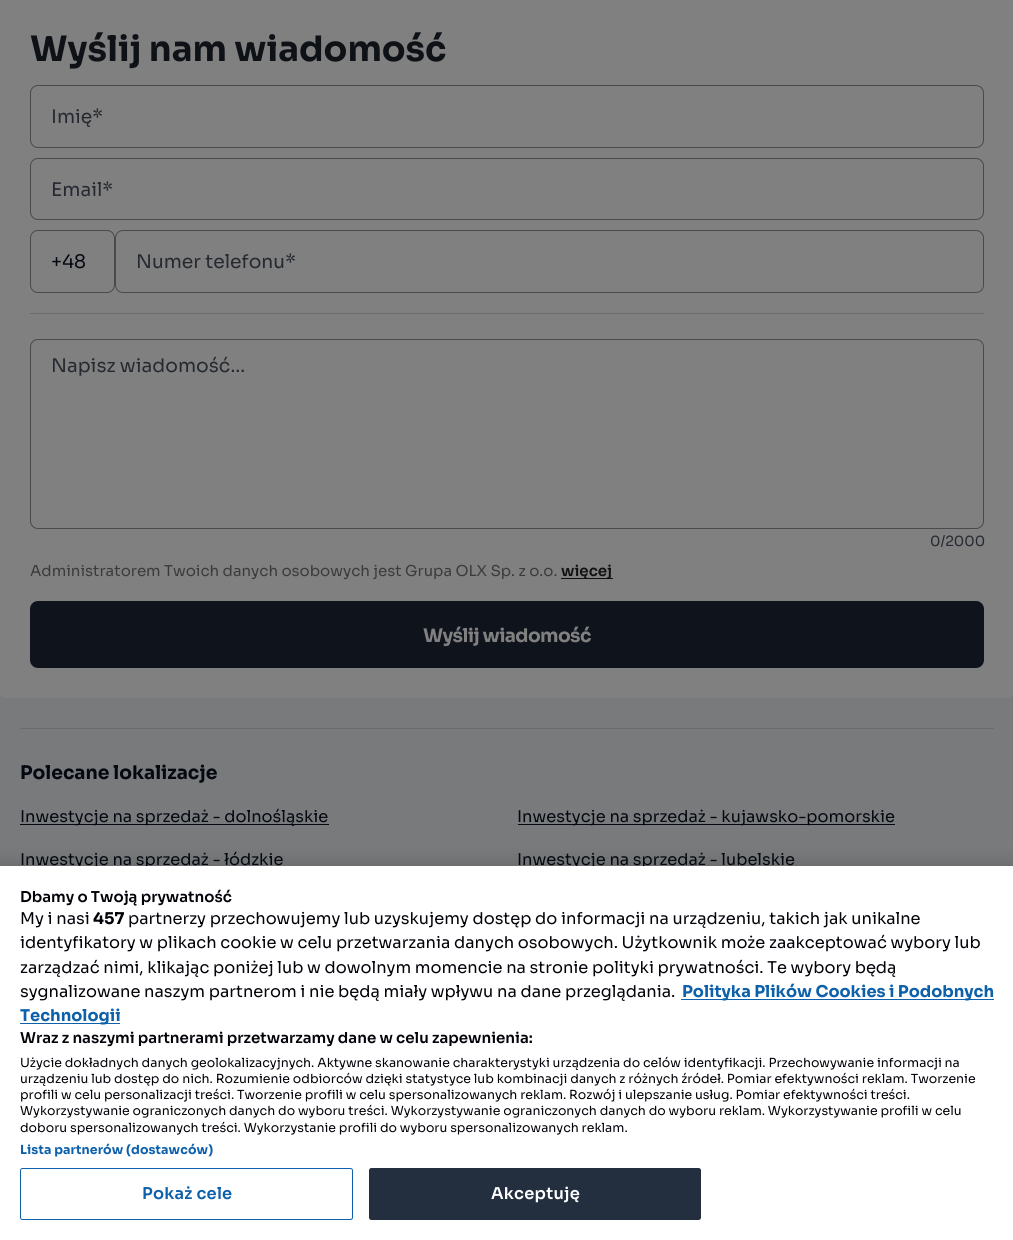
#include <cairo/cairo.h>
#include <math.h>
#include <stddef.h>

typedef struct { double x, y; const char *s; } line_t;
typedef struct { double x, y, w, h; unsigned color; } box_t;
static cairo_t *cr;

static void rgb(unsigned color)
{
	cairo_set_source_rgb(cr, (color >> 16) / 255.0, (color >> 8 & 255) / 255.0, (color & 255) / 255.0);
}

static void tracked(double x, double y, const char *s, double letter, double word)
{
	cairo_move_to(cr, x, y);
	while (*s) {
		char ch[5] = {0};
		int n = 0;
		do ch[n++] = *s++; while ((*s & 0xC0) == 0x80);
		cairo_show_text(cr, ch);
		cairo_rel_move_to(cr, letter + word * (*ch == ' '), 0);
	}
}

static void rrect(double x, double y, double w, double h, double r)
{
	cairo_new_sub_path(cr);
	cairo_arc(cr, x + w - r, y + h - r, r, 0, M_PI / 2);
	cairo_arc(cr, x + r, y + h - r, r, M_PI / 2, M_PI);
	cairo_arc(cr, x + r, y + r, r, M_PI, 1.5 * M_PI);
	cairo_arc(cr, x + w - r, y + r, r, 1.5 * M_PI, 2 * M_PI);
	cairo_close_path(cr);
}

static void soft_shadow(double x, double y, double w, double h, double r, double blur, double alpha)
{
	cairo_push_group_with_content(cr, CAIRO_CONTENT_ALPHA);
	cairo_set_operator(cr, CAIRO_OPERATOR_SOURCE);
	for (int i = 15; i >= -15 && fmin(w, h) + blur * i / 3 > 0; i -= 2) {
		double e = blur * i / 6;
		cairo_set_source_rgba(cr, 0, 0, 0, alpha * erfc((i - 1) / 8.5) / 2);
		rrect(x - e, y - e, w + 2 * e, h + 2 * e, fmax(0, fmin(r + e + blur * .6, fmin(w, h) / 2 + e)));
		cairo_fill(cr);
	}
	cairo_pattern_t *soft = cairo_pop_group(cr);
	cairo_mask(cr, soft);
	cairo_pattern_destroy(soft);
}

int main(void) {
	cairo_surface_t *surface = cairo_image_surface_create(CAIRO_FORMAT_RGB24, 1013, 1240);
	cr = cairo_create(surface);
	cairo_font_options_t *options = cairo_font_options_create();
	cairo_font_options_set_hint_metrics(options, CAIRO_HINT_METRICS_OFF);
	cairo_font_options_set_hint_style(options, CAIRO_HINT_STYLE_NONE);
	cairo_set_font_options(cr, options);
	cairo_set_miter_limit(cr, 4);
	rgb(0x797a7b);
	cairo_paint(cr);
	rgb(0x808080);
	rrect(0, -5, 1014, 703, 5);
	cairo_fill(cr);
	rrect(30.5, 85.5, 953, 62, 7.5);
	rgb(0x474a4e);
	cairo_set_line_width(cr, 1);
	cairo_stroke(cr);
	rrect(30.5, 158.5, 953, 61, 7.5);
	cairo_stroke(cr);
	rrect(30.5, 230.5, 84, 62, 7.5);
	cairo_stroke(cr);
	rrect(115.5, 230.5, 868, 62, 7.5);
	cairo_stroke(cr);
	rgb(0x6a6b6d);
	cairo_rectangle(cr, 30, 313, 954, 1);
	cairo_fill(cr);
	rrect(30.5, 339.5, 953, 189, 7.5);
	rgb(0x474a4e);
	cairo_stroke(cr);
	rgb(0x111111);
	cairo_rectangle(cr, 561, 578, 52, 1);
	cairo_fill(cr);
	rgb(0x0e131c);
	rrect(30, 601, 954, 67, 8);
	cairo_fill(cr);
	{
		static const box_t items[] = {
			{20, 728, 974, 1, 0x6a6b6d},
			{20, 824, 309, 1, 0x040911},
			{518, 824, 377, 1, 0x040911},
		};
		for (size_t i = 0; i < sizeof items / sizeof *items; i++) {
			rgb(items[i].color);
			cairo_rectangle(cr, items[i].x, items[i].y, items[i].w, items[i].h);
			cairo_fill(cr);
		}
	}
	rgb(0x000000);
	soft_shadow(0, 866, 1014, 374, 0, 11, 0.2);
	cairo_select_font_face(cr, "Sora", CAIRO_FONT_SLANT_NORMAL, CAIRO_FONT_WEIGHT_BOLD);
	cairo_set_font_size(cr, 35);
	rgb(0x0e1217);
	cairo_move_to(cr, 30, 61);
	cairo_show_text(cr, "Wyślij nam wiadomość");
	cairo_select_font_face(cr, "Sora", CAIRO_FONT_SLANT_NORMAL, CAIRO_FONT_WEIGHT_NORMAL);
	cairo_set_font_size(cr, 18.75);
	rgb(0x252930);
	cairo_move_to(cr, 51, 123);
	cairo_show_text(cr, "Imię*");
	cairo_move_to(cr, 51, 196);
	cairo_show_text(cr, "Email*");
	rgb(0x040911);
	cairo_move_to(cr, 51, 268);
	cairo_show_text(cr, "+48");
	rgb(0x252930);
	cairo_move_to(cr, 136, 268);
	cairo_show_text(cr, "Numer telefonu*");
	cairo_move_to(cr, 51, 372);
	cairo_show_text(cr, "Napisz wiadomość…");
	cairo_set_font_size(cr, 14);
	cairo_move_to(cr, 930, 546);
	cairo_show_text(cr, "0/2000");
	cairo_set_font_size(cr, 15);
	rgb(0x3b3b3b);
	cairo_move_to(cr, 30, 576);
	cairo_show_text(cr, "Administratorem Twoich danych osobowych jest Grupa OLX Sp. z o.o.");
	cairo_select_font_face(cr, "Sora SemiBold", CAIRO_FONT_SLANT_NORMAL, CAIRO_FONT_WEIGHT_NORMAL);
	rgb(0x111111);
	cairo_move_to(cr, 561, 576);
	cairo_show_text(cr, "więcej");
	cairo_select_font_face(cr, "Sora", CAIRO_FONT_SLANT_NORMAL, CAIRO_FONT_WEIGHT_BOLD);
	cairo_set_font_size(cr, 18.75);
	rgb(0x808080);
	tracked(423, 642, "Wyślij wiadomość", -0.6, 0);
	rgb(0x040911);
	cairo_move_to(cr, 20, 779);
	cairo_show_text(cr, "Polecane lokalizacje");
	cairo_select_font_face(cr, "Sora", CAIRO_FONT_SLANT_NORMAL, CAIRO_FONT_WEIGHT_NORMAL);
	cairo_set_font_size(cr, 16.25);
	{
		static const line_t items[] = {
			{20, 822, "Inwestycje na sprzedaż - dolnośląskie"},
			{517, 822, "Inwestycje na sprzedaż - kujawsko-pomorskie"},
			{20, 865, "Inwestycje na sprzedaż - łódzkie"},
			{517, 865, "Inwestycje na sprzedaż - lubelskie"},
		};
		for (size_t i = 0; i < sizeof items / sizeof *items; i++) {
			cairo_move_to(cr, items[i].x, items[i].y);
			cairo_show_text(cr, items[i].s);
		}
	}
	rgb(0xffffff);
	cairo_rectangle(cr, 0, 866, 1013, 374);
	cairo_fill(cr);
	cairo_select_font_face(cr, "Sora SemiBold", CAIRO_FONT_SLANT_NORMAL, CAIRO_FONT_WEIGHT_NORMAL);
	cairo_set_font_size(cr, 15);
	rgb(0x020309);
	cairo_move_to(cr, 20, 902);
	cairo_show_text(cr, "Dbamy o Twoją prywatność");
	cairo_select_font_face(cr, "Sora", CAIRO_FONT_SLANT_NORMAL, CAIRO_FONT_WEIGHT_NORMAL);
	cairo_set_font_size(cr, 16.25);
	cairo_move_to(cr, 20, 924);
	cairo_show_text(cr, "My i nasi");
	cairo_select_font_face(cr, "Sora", CAIRO_FONT_SLANT_NORMAL, CAIRO_FONT_WEIGHT_BOLD);
	cairo_move_to(cr, 93, 924);
	cairo_show_text(cr, "457");
	cairo_select_font_face(cr, "Sora", CAIRO_FONT_SLANT_NORMAL, CAIRO_FONT_WEIGHT_NORMAL);
	{
		static const line_t items[] = {
			{128, 924, "partnerzy przechowujemy lub uzyskujemy dostęp do informacji na urządzeniu, takich jak unikalne"},
			{20, 948, "identyfikatory w plikach cookie w celu przetwarzania danych osobowych. Użytkownik może zaakceptować wybory lub"},
			{20, 973, "zarządzać nimi, klikając poniżej lub w dowolnym momencie na stronie polityki prywatności. Te wybory będą"},
			{20, 997, "sygnalizowane naszym partnerom i nie będą miały wpływu na dane przeglądania."},
		};
		for (size_t i = 0; i < sizeof items / sizeof *items; i++) {
			cairo_move_to(cr, items[i].x, items[i].y);
			cairo_show_text(cr, items[i].s);
		}
	}
	rgb(0x0d61ab);
	cairo_rectangle(cr, 681, 999, 313, 1);
	cairo_fill(cr);
	cairo_select_font_face(cr, "Sora", CAIRO_FONT_SLANT_NORMAL, CAIRO_FONT_WEIGHT_BOLD);
	cairo_move_to(cr, 682, 997);
	cairo_show_text(cr, "Polityka Plików Cookies i Podobnych");
	cairo_rectangle(cr, 20, 1023, 100, 1);
	cairo_fill(cr);
	cairo_move_to(cr, 20, 1021);
	cairo_show_text(cr, "Technologii");
	cairo_select_font_face(cr, "Sora SemiBold", CAIRO_FONT_SLANT_NORMAL, CAIRO_FONT_WEIGHT_NORMAL);
	cairo_set_font_size(cr, 15);
	rgb(0x020309);
	cairo_move_to(cr, 20, 1043);
	cairo_show_text(cr, "Wraz z naszymi partnerami przetwarzamy dane w celu zapewnienia:");
	cairo_select_font_face(cr, "Sora", CAIRO_FONT_SLANT_NORMAL, CAIRO_FONT_WEIGHT_NORMAL);
	cairo_set_font_size(cr, 12.5);
	{
		static const line_t items[] = {
			{20, 1067, "Użycie dokładnych danych geolokalizacyjnych. Aktywne skanowanie charakterystyki urządzenia do celów identyfikacji. Przechowywanie informacji na"},
			{20, 1083, "urządzeniu lub dostęp do nich. Rozumienie odbiorców dzięki statystyce lub kombinacji danych z różnych źródeł. Pomiar efektywności reklam. Tworzenie"},
			{20, 1099, "profili w celu personalizacji treści. Tworzenie profili w celu spersonalizowanych reklam. Rozwój i ulepszanie usług. Pomiar efektywności treści."},
			{20, 1115, "Wykorzystywanie ograniczonych danych do wyboru treści. Wykorzystywanie ograniczonych danych do wyboru reklam. Wykorzystywanie profili w celu"},
			{20, 1132, "doboru spersonalizowanych treści. Wykorzystanie profili do wyboru spersonalizowanych reklam."},
		};
		for (size_t i = 0; i < sizeof items / sizeof *items; i++) {
			cairo_move_to(cr, items[i].x, items[i].y);
			cairo_show_text(cr, items[i].s);
		}
	}
	cairo_select_font_face(cr, "Sora", CAIRO_FONT_SLANT_NORMAL, CAIRO_FONT_WEIGHT_BOLD);
	rgb(0x0d61ab);
	tracked(20, 1154, "Lista partnerów (dostawców)", 0.1, 0);
	rrect(20.5, 1168.5, 332, 51, 2);
	cairo_stroke(cr);
	cairo_select_font_face(cr, "Sora SemiBold", CAIRO_FONT_SLANT_NORMAL, CAIRO_FONT_WEIGHT_NORMAL);
	cairo_set_font_size(cr, 16.25);
	tracked(142, 1199, "Pokaż cele", 0.25, 0);
	rgb(0x232e3f);
	rrect(369.5, 1168.5, 331, 51, 2);
	cairo_fill_preserve(cr);
	cairo_stroke(cr);
	rgb(0xffffff);
	tracked(491, 1199, "Akceptuję", 0.25, 0);
	cairo_surface_write_to_png(surface, "page.png");
	cairo_font_options_destroy(options);
	cairo_destroy(cr);
	cairo_surface_destroy(surface);
	return 0;
}
